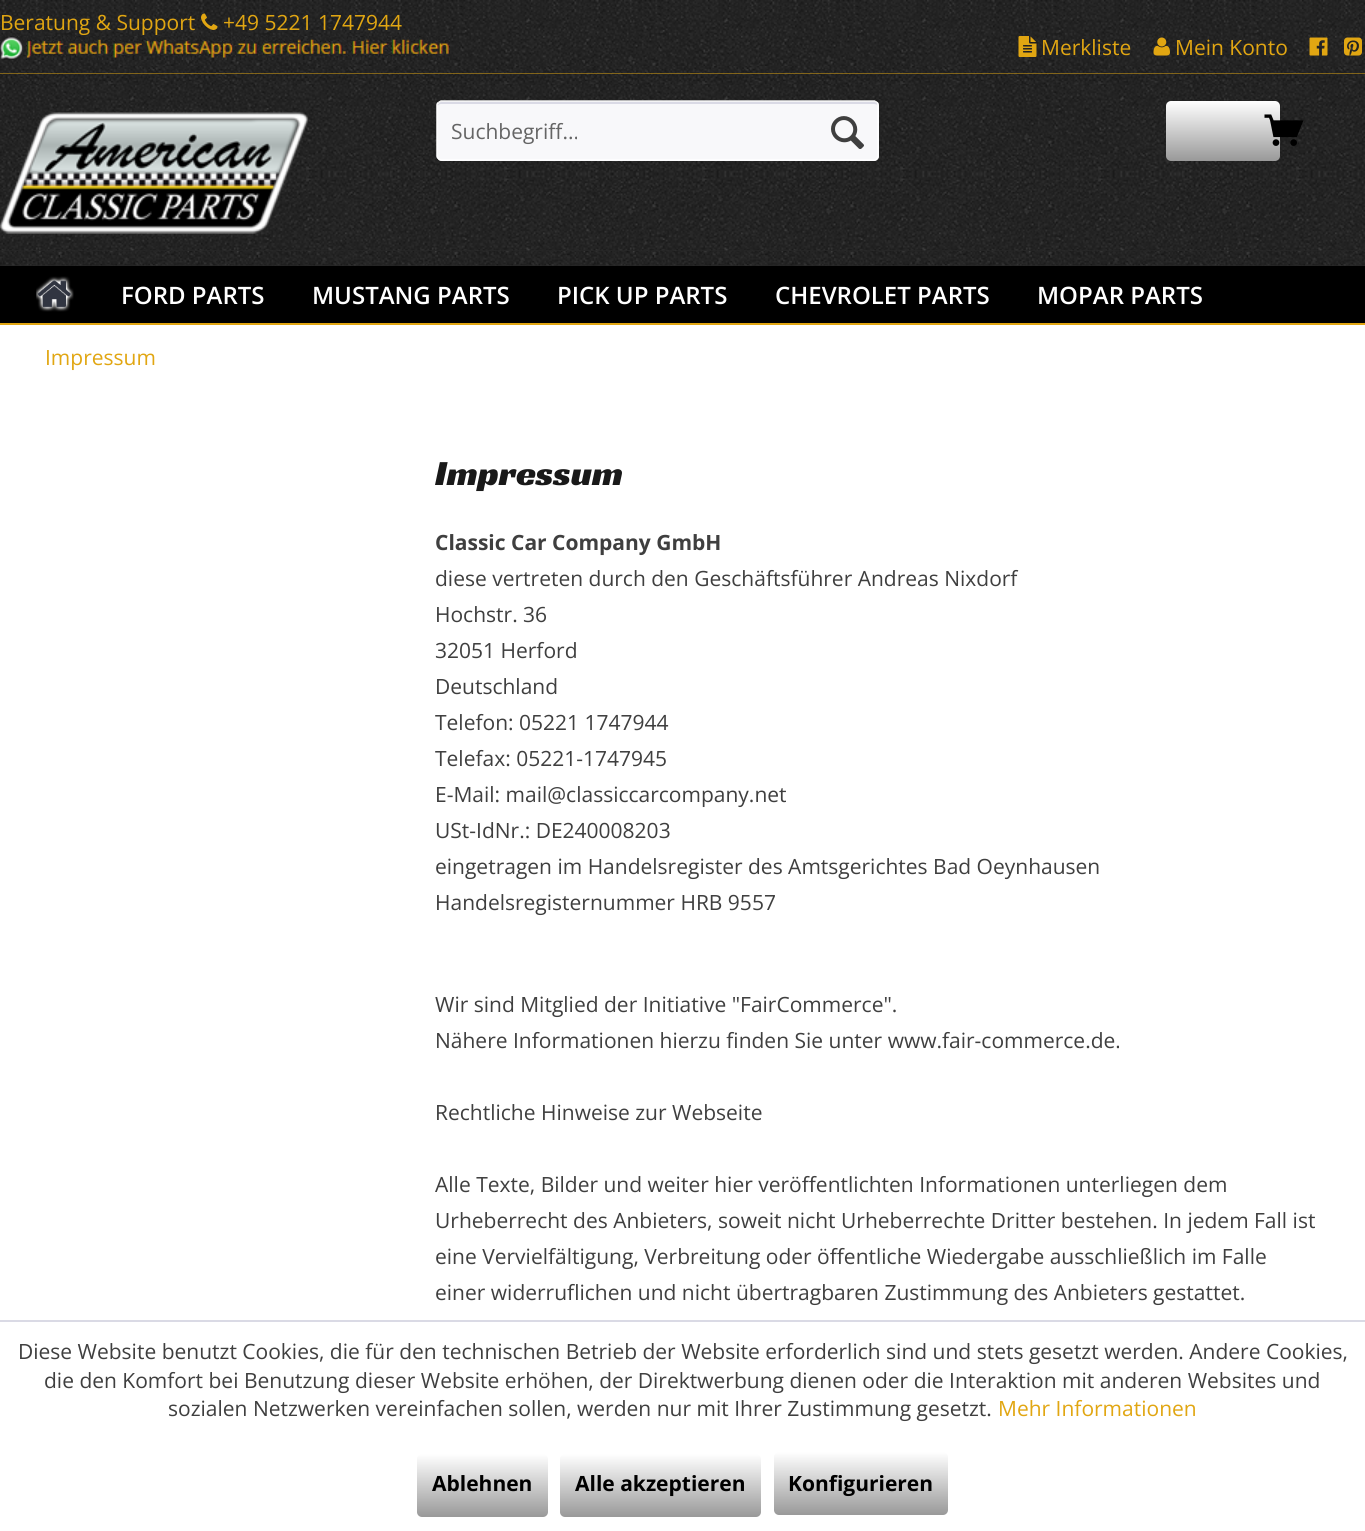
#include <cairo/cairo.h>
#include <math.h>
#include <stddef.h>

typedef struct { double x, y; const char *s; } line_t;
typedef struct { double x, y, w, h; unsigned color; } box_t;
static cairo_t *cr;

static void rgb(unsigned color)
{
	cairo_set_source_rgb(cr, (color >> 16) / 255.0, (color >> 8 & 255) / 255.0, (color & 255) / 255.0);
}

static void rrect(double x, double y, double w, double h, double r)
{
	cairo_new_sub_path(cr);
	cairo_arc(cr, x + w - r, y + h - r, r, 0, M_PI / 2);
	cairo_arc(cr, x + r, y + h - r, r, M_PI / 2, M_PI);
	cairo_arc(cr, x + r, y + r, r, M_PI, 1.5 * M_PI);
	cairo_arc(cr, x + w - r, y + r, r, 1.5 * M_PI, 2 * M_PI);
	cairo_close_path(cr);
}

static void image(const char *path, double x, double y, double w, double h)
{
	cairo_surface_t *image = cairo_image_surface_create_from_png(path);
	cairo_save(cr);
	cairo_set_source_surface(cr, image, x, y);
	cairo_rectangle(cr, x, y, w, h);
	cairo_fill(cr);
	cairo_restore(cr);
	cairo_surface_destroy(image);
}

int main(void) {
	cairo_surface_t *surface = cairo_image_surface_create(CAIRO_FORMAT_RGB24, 1365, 1531);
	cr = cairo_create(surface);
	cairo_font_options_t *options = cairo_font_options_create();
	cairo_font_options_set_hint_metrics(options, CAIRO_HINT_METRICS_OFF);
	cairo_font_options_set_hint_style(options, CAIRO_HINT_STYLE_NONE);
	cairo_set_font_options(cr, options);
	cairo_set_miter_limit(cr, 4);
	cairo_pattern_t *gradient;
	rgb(0x292929);
	cairo_paint(cr);
	image("img/1.png", 0, 74, 1365, 192);
	rgb(0xe1a612);
	cairo_rectangle(cr, 0, 73, 1365, 1);
	cairo_fill(cr);
	image("img/2.png", 0, 0, 1365, 74);
	image("img/3.png", 0, 7, 1365, 59);
	image("img/4.png", 201, 13, 17, 17);
	image("img/5.png", 0, 36, 450, 24);
	image("img/6.png", 1018, 36, 19, 21);
	image("img/7.png", 1153, 37, 17, 19);
	image("img/8.png", 1309, 37, 19, 19);
	image("img/9.png", 1344, 37, 18, 19);
	rgb(0x292929);
	cairo_rectangle(cr, 0, 250, 1365, 1);
	cairo_fill(cr);
	image("img/10.png", 0, 85, 1365, 166);
	image("img/11.png", 0, 112, 308, 122);
	rgb(0xf8f8fa);
	rrect(437, 101, 442, 60, 5);
	cairo_fill(cr);
	rgb(0xdadae5);
	cairo_new_path(cr);
	cairo_move_to(cr, 441, 104);
	cairo_line_to(cr, 874, 104);
	cairo_curve_to(cr, 876, 104, 878, 105, 878, 106);
	cairo_curve_to(cr, 878, 104, 877, 102, 875, 102);
	cairo_line_to(cr, 440, 102);
	cairo_line_to(cr, 438, 104);
	cairo_line_to(cr, 438, 106);
	cairo_curve_to(cr, 438, 105, 439, 104, 441, 104);
	cairo_close_path(cr);
	cairo_fill(cr);
	cairo_new_path(cr);
	cairo_move_to(cr, 438.5, 102.5);
	cairo_line_to(cr, 441, 101);
	cairo_line_to(cr, 874.5, 101);
	cairo_line_to(cr, 877, 102.5);
	rgb(0xf2f2f2);
	cairo_set_line_width(cr, 1.5);
	cairo_stroke(cr);
	cairo_new_path(cr);
	cairo_move_to(cr, 877, 102.5);
	cairo_curve_to(cr, 878, 103, 878, 104, 878, 105);
	cairo_line_to(cr, 878, 156);
	cairo_curve_to(cr, 878, 157, 878, 158, 877, 158.5);
	cairo_curve_to(cr, 876.5, 159.5, 875.5, 160, 874.5, 160);
	cairo_line_to(cr, 441, 160);
	cairo_curve_to(cr, 440, 160, 439, 159.5, 438.5, 158.5);
	cairo_curve_to(cr, 437.5, 158, 437, 157, 437, 156);
	cairo_line_to(cr, 437, 105);
	cairo_curve_to(cr, 437, 104, 437.5, 103, 438.5, 102.5);
	rgb(0xffffff);
	cairo_stroke(cr);
	image("img/12.png", 831, 116, 33, 33);
	gradient = cairo_pattern_create_linear(1223, 101, 1223, 161);
	cairo_pattern_add_color_stop_rgba(gradient, 0, 1, 1, 1, 1);
	cairo_pattern_add_color_stop_rgba(gradient, 1, 0.6, 0.6, 0.6, 1);
	cairo_set_source(cr, gradient);
	cairo_pattern_destroy(gradient);
	rrect(1166, 101, 114, 60, 5);
	cairo_fill(cr);
	image("img/13.png", 1264, 114, 40, 32);
	rgb(0xe1a612);
	cairo_rectangle(cr, 0, 323, 1365, 2);
	cairo_fill(cr);
	rgb(0x000000);
	cairo_rectangle(cr, 0, 266, 1365, 57);
	cairo_fill(cr);
	image("img/14.png", 36, 276, 38, 36);
	{
		static const box_t items[] = {
			{0, 325, 1365, 995, 0xffffff},
			{0, 1322, 1365, 209, 0xffffff},
			{0, 1320, 1365, 2, 0xdadae5},
		};
		for (size_t i = 0; i < sizeof items / sizeof *items; i++) {
			rgb(items[i].color);
			cairo_rectangle(cr, items[i].x, items[i].y, items[i].w, items[i].h);
			cairo_fill(cr);
		}
	}
	gradient = cairo_pattern_create_linear(482, 1454, 482, 1517);
	cairo_pattern_add_color_stop_rgba(gradient, 0, 1, 1, 1, 1);
	cairo_pattern_add_color_stop_rgba(gradient, 1, 0.6, 0.6, 0.6, 1);
	cairo_set_source(cr, gradient);
	cairo_pattern_destroy(gradient);
	rrect(417, 1454, 131, 63, 5);
	cairo_fill(cr);
	gradient = cairo_pattern_create_linear(660, 1454, 660, 1517);
	cairo_pattern_add_color_stop_rgba(gradient, 0, 1, 1, 1, 1);
	cairo_pattern_add_color_stop_rgba(gradient, 1, 0.6, 0.6, 0.6, 1);
	cairo_set_source(cr, gradient);
	cairo_pattern_destroy(gradient);
	rrect(560, 1454, 201, 63, 5);
	cairo_fill(cr);
	gradient = cairo_pattern_create_linear(861, 1452, 861, 1515);
	cairo_pattern_add_color_stop_rgba(gradient, 0, 1, 1, 1, 1);
	cairo_pattern_add_color_stop_rgba(gradient, 1, 0.6, 0.6, 0.6, 1);
	cairo_set_source(cr, gradient);
	cairo_pattern_destroy(gradient);
	rrect(774, 1452, 174, 63, 5);
	cairo_fill(cr);
	cairo_select_font_face(cr, "Open Sans", CAIRO_FONT_SLANT_NORMAL, CAIRO_FONT_WEIGHT_NORMAL);
	cairo_set_font_size(cr, 21);
	rgb(0xe1a612);
	{
		static const line_t items[] = {
			{0, 30, "Beratung & Support"},
			{223, 30, "+49 5221 1747944"},
			{1041, 55, "Merkliste"},
			{1175, 55, "Mein Konto"},
		};
		for (size_t i = 0; i < sizeof items / sizeof *items; i++) {
			cairo_move_to(cr, items[i].x, items[i].y);
			cairo_show_text(cr, items[i].s);
		}
	}
	rgb(0x656565);
	cairo_move_to(cr, 451, 139);
	cairo_show_text(cr, "Suchbegriff...");
	cairo_select_font_face(cr, "Open Sans SemiBold", CAIRO_FONT_SLANT_NORMAL, CAIRO_FONT_WEIGHT_NORMAL);
	cairo_set_font_size(cr, 24);
	rgb(0xffffff);
	{
		static const line_t items[] = {
			{121, 304, "FORD PARTS"},
			{312, 304, "MUSTANG PARTS"},
			{557, 304, "PICK UP PARTS"},
			{775, 304, "CHEVROLET PARTS"},
			{1037, 304, "MOPAR PARTS"},
		};
		for (size_t i = 0; i < sizeof items / sizeof *items; i++) {
			cairo_move_to(cr, items[i].x, items[i].y);
			cairo_show_text(cr, items[i].s);
		}
	}
	cairo_select_font_face(cr, "Open Sans", CAIRO_FONT_SLANT_NORMAL, CAIRO_FONT_WEIGHT_NORMAL);
	cairo_set_font_size(cr, 21);
	rgb(0xe1a612);
	cairo_move_to(cr, 45, 365);
	cairo_show_text(cr, "Impressum");
	cairo_select_font_face(cr, "Racing Sans One", CAIRO_FONT_SLANT_NORMAL, CAIRO_FONT_WEIGHT_NORMAL);
	cairo_set_font_size(cr, 36);
	rgb(0x191919);
	cairo_move_to(cr, 435, 485);
	cairo_show_text(cr, "Impressum");
	cairo_select_font_face(cr, "Open Sans", CAIRO_FONT_SLANT_NORMAL, CAIRO_FONT_WEIGHT_BOLD);
	cairo_set_font_size(cr, 21);
	rgb(0x3f3f3f);
	cairo_move_to(cr, 435, 550);
	cairo_show_text(cr, "Classic Car Company GmbH");
	cairo_select_font_face(cr, "Open Sans", CAIRO_FONT_SLANT_NORMAL, CAIRO_FONT_WEIGHT_NORMAL);
	{
		static const line_t items[] = {
			{435, 586, "diese vertreten durch den Geschäftsführer Andreas Nixdorf"},
			{435, 622, "Hochstr. 36"},
			{435, 658, "32051 Herford"},
			{435, 694, "Deutschland"},
			{435, 730, "Telefon: 05221 1747944"},
			{435, 766, "Telefax: 05221-1747945"},
			{435, 802, "E-Mail: mail@classiccarcompany.net"},
			{435, 838, "USt-IdNr.: DE240008203"},
			{435, 874, "eingetragen im Handelsregister des Amtsgerichtes Bad Oeynhausen"},
			{435, 910, "Handelsregisternummer HRB 9557"},
			{435, 1012, "Wir sind Mitglied der Initiative \"FairCommerce\"."},
			{435, 1048, "Nähere Informationen hierzu finden Sie unter www.fair-commerce.de."},
			{435, 1120, "Rechtliche Hinweise zur Webseite"},
			{435, 1192, "Alle Texte, Bilder und weiter hier veröffentlichten Informationen unterliegen dem"},
			{435, 1228, "Urheberrecht des Anbieters, soweit nicht Urheberrechte Dritter bestehen. In jedem Fall ist"},
			{435, 1264, "eine Vervielfältigung, Verbreitung oder öffentliche Wiedergabe ausschließlich im Falle"},
			{435, 1300, "einer widerruflichen und nicht übertragbaren Zustimmung des Anbieters gestattet."},
			{18, 1359, "Diese Website benutzt Cookies, die für den technischen Betrieb der Website erforderlich sind und stets gesetzt werden. Andere Cookies,"},
			{44, 1388, "die den Komfort bei Benutzung dieser Website erhöhen, der Direktwerbung dienen oder die Interaktion mit anderen Websites und"},
			{168, 1416, "sozialen Netzwerken vereinfachen sollen, werden nur mit Ihrer Zustimmung gesetzt."},
		};
		for (size_t i = 0; i < sizeof items / sizeof *items; i++) {
			cairo_move_to(cr, items[i].x, items[i].y);
			cairo_show_text(cr, items[i].s);
		}
	}
	rgb(0xe1a612);
	cairo_move_to(cr, 998, 1416);
	cairo_show_text(cr, "Mehr Informationen");
	cairo_select_font_face(cr, "Open Sans", CAIRO_FONT_SLANT_NORMAL, CAIRO_FONT_WEIGHT_BOLD);
	rgb(0x000000);
	{
		static const line_t items[] = {
			{432, 1491, "Ablehnen"},
			{575, 1491, "Alle akzeptieren"},
			{788, 1491, "Konfigurieren"},
		};
		for (size_t i = 0; i < sizeof items / sizeof *items; i++) {
			cairo_move_to(cr, items[i].x, items[i].y);
			cairo_show_text(cr, items[i].s);
		}
	}
	cairo_surface_write_to_png(surface, "page.png");
	cairo_font_options_destroy(options);
	cairo_destroy(cr);
	cairo_surface_destroy(surface);
	return 0;
}
